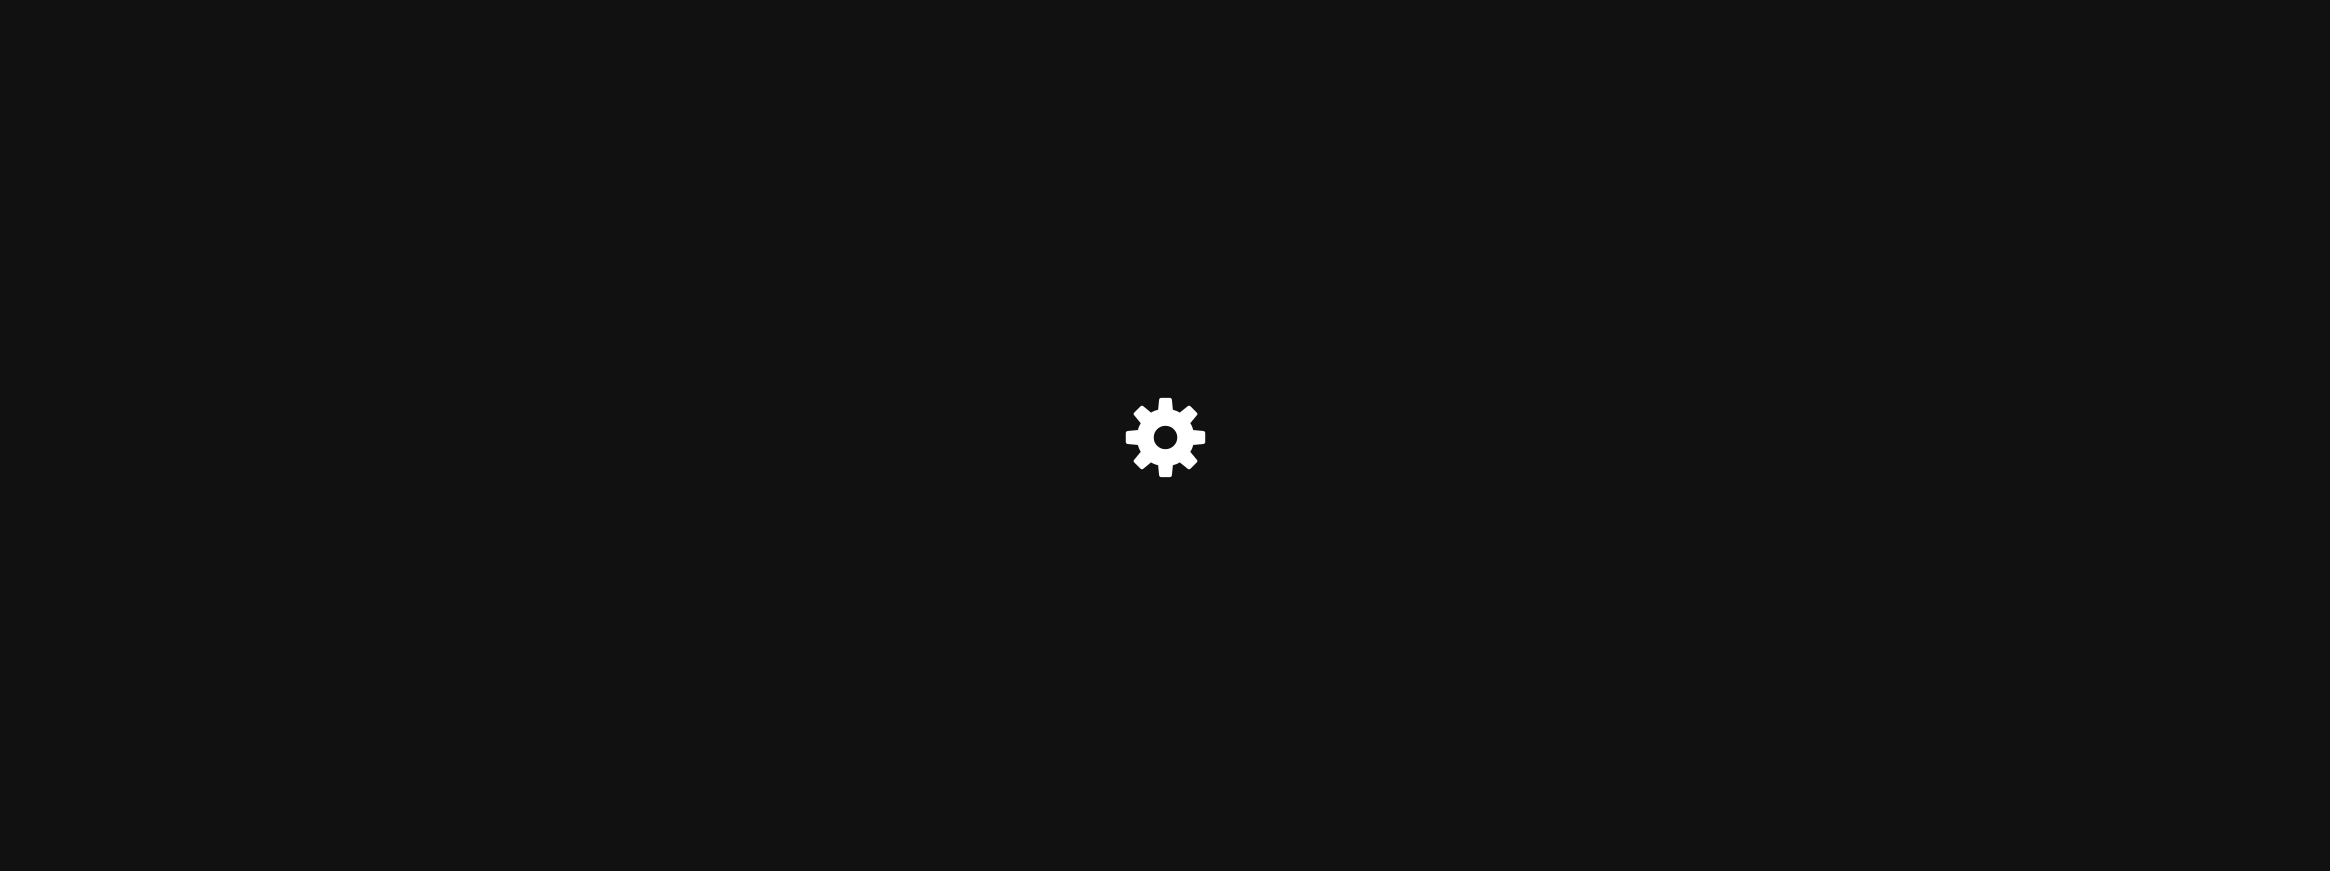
#include <cairo/cairo.h>
#include <math.h>
#include <stddef.h>

static cairo_t *cr;

static void rgb(unsigned color)
{
	cairo_set_source_rgb(cr, (color >> 16) / 255.0, (color >> 8 & 255) / 255.0, (color & 255) / 255.0);
}

static void image(const char *path, double x, double y, double w, double h)
{
	cairo_surface_t *image = cairo_image_surface_create_from_png(path);
	cairo_save(cr);
	cairo_set_source_surface(cr, image, x, y);
	cairo_rectangle(cr, x, y, w, h);
	cairo_fill(cr);
	cairo_restore(cr);
	cairo_surface_destroy(image);
}

int main(void) {
	cairo_surface_t *surface = cairo_image_surface_create(CAIRO_FORMAT_RGB24, 2330, 871);
	cr = cairo_create(surface);
	cairo_font_options_t *options = cairo_font_options_create();
	cairo_font_options_set_hint_metrics(options, CAIRO_HINT_METRICS_OFF);
	cairo_font_options_set_hint_style(options, CAIRO_HINT_STYLE_NONE);
	cairo_set_font_options(cr, options);
	cairo_set_miter_limit(cr, 4);
	rgb(0x111111);
	cairo_paint(cr);
	image("img/1.png", 1125, 397, 81, 81);
	cairo_surface_write_to_png(surface, "page.png");
	cairo_font_options_destroy(options);
	cairo_destroy(cr);
	cairo_surface_destroy(surface);
	return 0;
}
